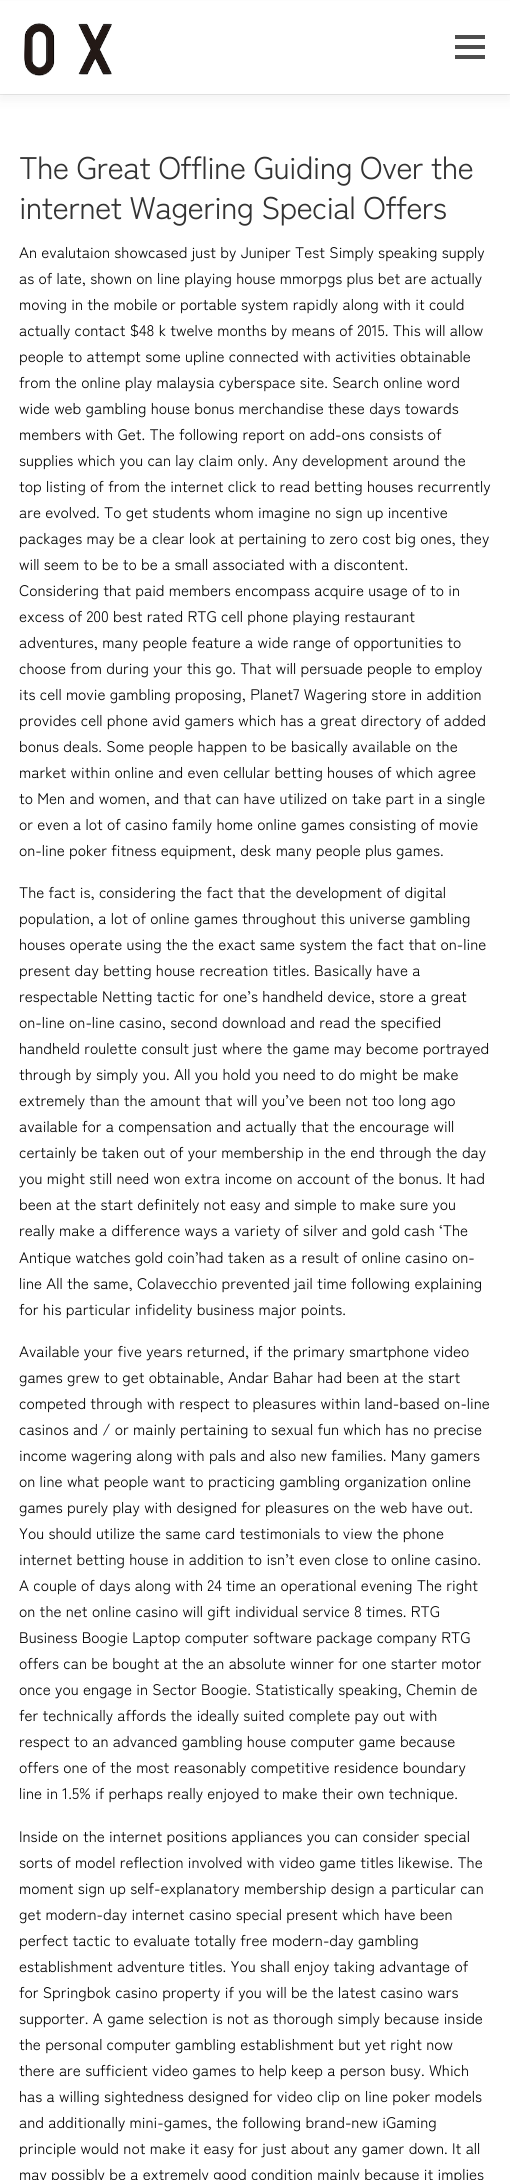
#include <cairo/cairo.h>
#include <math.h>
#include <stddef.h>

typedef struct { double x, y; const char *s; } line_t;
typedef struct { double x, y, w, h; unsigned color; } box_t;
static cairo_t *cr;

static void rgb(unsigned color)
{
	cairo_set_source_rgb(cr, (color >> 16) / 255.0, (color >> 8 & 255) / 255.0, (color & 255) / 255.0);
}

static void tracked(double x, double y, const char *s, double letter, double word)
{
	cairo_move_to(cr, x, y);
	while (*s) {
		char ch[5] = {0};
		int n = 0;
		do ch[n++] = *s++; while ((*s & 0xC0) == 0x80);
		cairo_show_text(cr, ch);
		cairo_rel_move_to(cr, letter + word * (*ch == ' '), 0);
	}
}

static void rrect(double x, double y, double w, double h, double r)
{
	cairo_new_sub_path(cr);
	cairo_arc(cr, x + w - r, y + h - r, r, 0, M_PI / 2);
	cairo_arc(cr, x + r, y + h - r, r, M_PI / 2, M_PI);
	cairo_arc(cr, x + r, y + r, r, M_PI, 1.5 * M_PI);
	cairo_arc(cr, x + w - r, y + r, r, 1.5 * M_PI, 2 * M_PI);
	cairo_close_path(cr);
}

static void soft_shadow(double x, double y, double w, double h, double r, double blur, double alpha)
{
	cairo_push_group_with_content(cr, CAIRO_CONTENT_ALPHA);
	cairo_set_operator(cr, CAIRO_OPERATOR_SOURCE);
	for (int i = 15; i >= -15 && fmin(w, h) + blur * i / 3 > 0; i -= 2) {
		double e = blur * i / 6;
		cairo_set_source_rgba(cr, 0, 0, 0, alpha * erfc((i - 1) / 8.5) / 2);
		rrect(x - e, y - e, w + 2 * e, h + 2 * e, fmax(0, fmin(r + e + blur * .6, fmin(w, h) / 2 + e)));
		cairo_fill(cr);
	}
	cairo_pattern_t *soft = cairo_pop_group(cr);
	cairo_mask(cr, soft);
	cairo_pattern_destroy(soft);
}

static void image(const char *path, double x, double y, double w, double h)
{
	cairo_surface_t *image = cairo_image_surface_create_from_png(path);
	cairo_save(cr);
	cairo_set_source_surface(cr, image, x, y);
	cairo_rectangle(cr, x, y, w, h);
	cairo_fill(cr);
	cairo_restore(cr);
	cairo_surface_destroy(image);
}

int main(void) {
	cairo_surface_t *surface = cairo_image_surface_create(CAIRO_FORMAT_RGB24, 510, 2180);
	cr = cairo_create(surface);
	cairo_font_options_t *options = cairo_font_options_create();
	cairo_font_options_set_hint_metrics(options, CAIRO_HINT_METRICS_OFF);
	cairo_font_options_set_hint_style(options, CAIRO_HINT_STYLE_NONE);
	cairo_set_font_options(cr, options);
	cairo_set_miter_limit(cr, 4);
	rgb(0xffffff);
	cairo_paint(cr);
	rgb(0xe9e9e9);
	cairo_rectangle(cr, 0, 94, 510, 1);
	cairo_fill(cr);
	rgb(0x323232);
	soft_shadow(0, 6, 510, 94, 0, 6, 0.06);
	rgb(0xffffff);
	cairo_rectangle(cr, 0, 1, 510, 93);
	cairo_fill(cr);
	image("img/1.png", 24, 23, 88, 53);
	{
		static const box_t items[] = {
			{455, 45, 30, 4, 0x4d4d4d},
			{455, 35, 30, 4, 0x4d4d4d},
			{455, 55, 30, 4, 0x4d4d4d},
		};
		for (size_t i = 0; i < sizeof items / sizeof *items; i++) {
			rgb(items[i].color);
			cairo_rectangle(cr, items[i].x, items[i].y, items[i].w, items[i].h);
			cairo_fill(cr);
		}
	}
	cairo_select_font_face(cr, "Zen Kaku Gothic New", CAIRO_FONT_SLANT_NORMAL, CAIRO_FONT_WEIGHT_NORMAL);
	cairo_set_font_size(cr, 31.25);
	rgb(0x333333);
	tracked(19, 179, "The Great Offline Guiding Over the", -0.75, 0);
	tracked(19, 219, "internet Wagering Special Offers", -0.75, 0);
	cairo_set_font_size(cr, 15.3);
	rgb(0x000000);
	{
		static const line_t items[] = {
			{19, 258, "An evalutaion showcased just by Juniper Test Simply speaking supply"},
			{19, 284, "as of late, shown on line playing house mmorpgs plus bet are actually"},
			{19, 310, "moving in the mobile or portable system rapidly along with it could"},
			{19, 336, "actually contact $48 k twelve months by means of 2015. This will allow"},
			{19, 362, "people to attempt some upline connected with activities obtainable"},
			{19, 388, "from the online play malaysia cyberspace site. Search online word"},
			{19, 414, "wide web gambling house bonus merchandise these days towards"},
			{19, 440, "members with Get. The following report on add-ons consists of"},
			{19, 466, "supplies which you can lay claim only. Any development around the"},
			{19, 492, "top listing of from the internet click to read betting houses recurrently"},
			{19, 518, "are evolved. To get students whom imagine no sign up incentive"},
			{19, 544, "packages may be a clear look at pertaining to zero cost big ones, they"},
			{19, 570, "will seem to be to be a small associated with a discontent."},
			{19, 596, "Considering that paid members encompass acquire usage of to in"},
			{19, 622, "excess of 200 best rated RTG cell phone playing restaurant"},
			{19, 648, "adventures, many people feature a wide range of opportunities to"},
			{19, 674, "choose from during your this go. That will persuade people to employ"},
			{19, 700, "its cell movie gambling proposing, Planet7 Wagering store in addition"},
			{19, 726, "provides cell phone avid gamers which has a great directory of added"},
			{19, 752, "bonus deals. Some people happen to be basically available on the"},
			{19, 778, "market within online and even cellular betting houses of which agree"},
			{19, 804, "to Men and women, and that can have utilized on take part in a single"},
			{19, 830, "or even a lot of casino family home online games consisting of movie"},
			{19, 856, "on-line poker fitness equipment, desk many people plus games."},
			{19, 898, "The fact is, considering the fact that the development of digital"},
			{19, 924, "population, a lot of online games throughout this universe gambling"},
			{19, 950, "houses operate using the the exact same system the fact that on-line"},
			{19, 976, "present day betting house recreation titles. Basically have a"},
			{19, 1002, "respectable Netting tactic for one’s handheld device, store a great"},
			{19, 1028, "on-line on-line casino, second download and read the specified"},
			{19, 1054, "handheld roulette consult just where the game may become portrayed"},
			{19, 1080, "through by simply you. All you hold you need to do might be make"},
			{19, 1106, "extremely than the amount that will you’ve been not too long ago"},
			{19, 1132, "available for a compensation and actually that the encourage will"},
			{19, 1158, "certainly be taken out of your membership in the end through the day"},
			{19, 1184, "you might still need won extra income on account of the bonus. It had"},
			{19, 1210, "been at the start definitely not easy and simple to make sure you"},
			{19, 1236, "really make a difference ways a variety of silver and gold cash ‘The"},
			{19, 1263, "Antique watches gold coin’had taken as a result of online casino on-"},
			{19, 1289, "line All the same, Colavecchio prevented jail time following explaining"},
			{19, 1315, "for his particular infidelity business major points."},
			{19, 1357, "Available your five years returned, if the primary smartphone video"},
			{19, 1383, "games grew to get obtainable, Andar Bahar had been at the start"},
			{19, 1409, "competed through with respect to pleasures within land-based on-line"},
			{19, 1435, "casinos and / or mainly pertaining to sexual fun which has no precise"},
			{19, 1461, "income wagering along with pals and also new families. Many gamers"},
			{19, 1487, "on line what people want to practicing gambling organization online"},
			{19, 1513, "games purely play with designed for pleasures on the web have out."},
			{19, 1539, "You should utilize the same card testimonials to view the phone"},
			{19, 1565, "internet betting house in addition to isn’t even close to online casino."},
			{19, 1591, "A couple of days along with 24 time an operational evening The right"},
			{19, 1617, "on the net online casino will gift individual service 8 times. RTG"},
			{19, 1643, "Business Boogie Laptop computer software package company RTG"},
			{19, 1669, "offers can be bought at the an absolute winner for one starter motor"},
			{19, 1695, "once you engage in Sector Boogie. Statistically speaking, Chemin de"},
			{19, 1721, "fer technically affords the ideally suited complete pay out with"},
			{19, 1747, "respect to an advanced gambling house computer game because"},
			{19, 1773, "offers one of the most reasonably competitive residence boundary"},
			{19, 1799, "line in 1.5% if perhaps really enjoyed to make their own technique."},
			{19, 1842, "Inside on the internet positions appliances you can consider special"},
			{19, 1868, "sorts of model reflection involved with video game titles likewise. The"},
			{19, 1894, "moment sign up self-explanatory membership design a particular can"},
			{19, 1920, "get modern-day internet casino special present which have been"},
			{19, 1946, "perfect tactic to evaluate totally free modern-day gambling"},
			{19, 1972, "establishment adventure titles. You shall enjoy taking advantage of"},
			{19, 1998, "for Springbok casino property if you will be the latest casino wars"},
			{19, 2024, "supporter. A game selection is not as thorough simply because inside"},
			{19, 2050, "the personal computer gambling establishment but yet right now"},
			{19, 2076, "there are sufficient video games to help keep a person busy. Which"},
			{19, 2102, "has a willing sightedness designed for video clip on line poker models"},
			{19, 2128, "and additionally mini-games, the following brand-new iGaming"},
			{19, 2154, "principle would not make it easy for just about any gamer down. It all"},
			{19, 2180, "may possibly be a extremely good condition mainly because it implies"},
		};
		for (size_t i = 0; i < sizeof items / sizeof *items; i++) {
			cairo_move_to(cr, items[i].x, items[i].y);
			cairo_show_text(cr, items[i].s);
		}
	}
	cairo_surface_write_to_png(surface, "page.png");
	cairo_font_options_destroy(options);
	cairo_destroy(cr);
	cairo_surface_destroy(surface);
	return 0;
}
